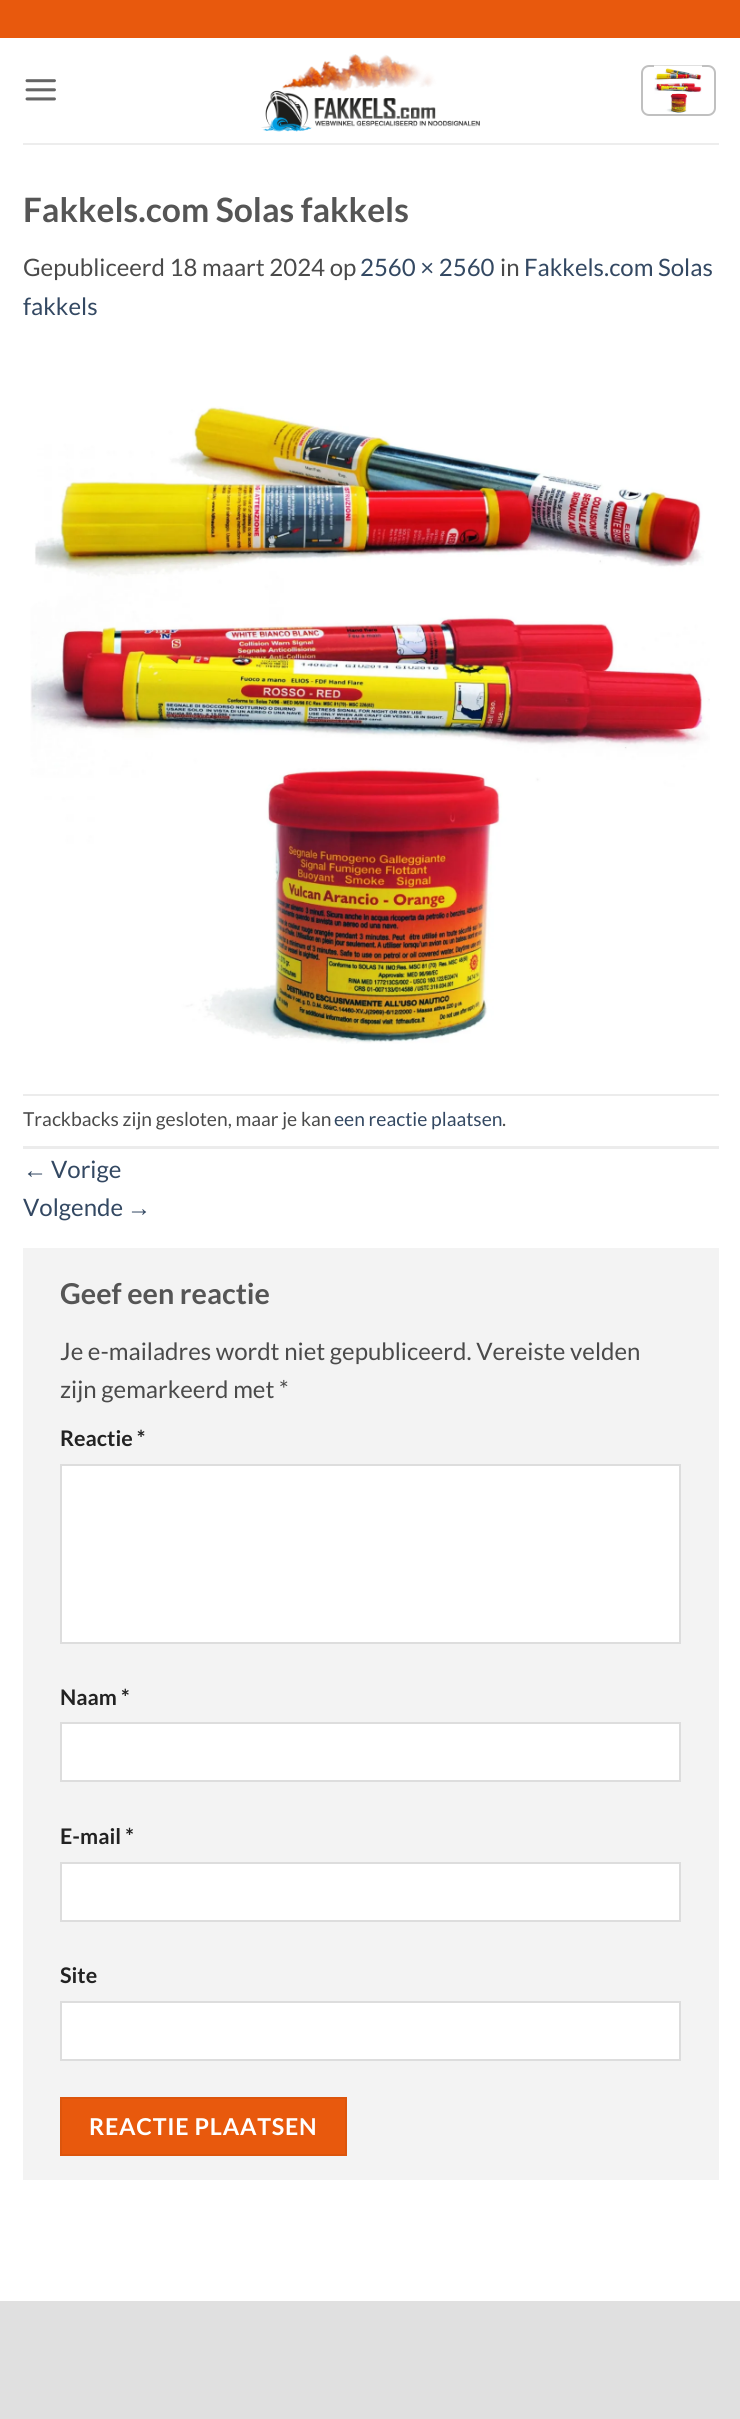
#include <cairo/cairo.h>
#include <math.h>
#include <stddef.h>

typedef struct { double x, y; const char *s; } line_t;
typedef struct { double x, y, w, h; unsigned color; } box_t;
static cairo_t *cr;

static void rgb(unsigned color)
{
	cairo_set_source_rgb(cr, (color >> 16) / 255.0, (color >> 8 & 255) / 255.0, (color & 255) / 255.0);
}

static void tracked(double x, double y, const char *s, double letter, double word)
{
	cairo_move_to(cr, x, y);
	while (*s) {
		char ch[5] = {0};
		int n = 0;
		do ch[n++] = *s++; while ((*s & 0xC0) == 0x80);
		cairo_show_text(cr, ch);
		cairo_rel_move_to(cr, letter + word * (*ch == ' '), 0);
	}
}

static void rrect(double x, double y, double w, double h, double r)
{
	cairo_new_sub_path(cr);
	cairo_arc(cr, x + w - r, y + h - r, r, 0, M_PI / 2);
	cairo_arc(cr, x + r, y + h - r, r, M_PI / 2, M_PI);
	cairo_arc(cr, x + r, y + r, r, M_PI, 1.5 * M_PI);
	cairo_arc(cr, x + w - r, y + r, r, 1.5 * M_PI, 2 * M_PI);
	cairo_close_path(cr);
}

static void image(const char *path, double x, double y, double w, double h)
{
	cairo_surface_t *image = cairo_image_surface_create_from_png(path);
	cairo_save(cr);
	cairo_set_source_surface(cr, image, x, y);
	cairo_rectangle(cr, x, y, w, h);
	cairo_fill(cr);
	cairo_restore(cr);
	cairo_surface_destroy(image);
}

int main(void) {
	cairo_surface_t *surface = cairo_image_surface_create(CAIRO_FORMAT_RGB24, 740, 2419);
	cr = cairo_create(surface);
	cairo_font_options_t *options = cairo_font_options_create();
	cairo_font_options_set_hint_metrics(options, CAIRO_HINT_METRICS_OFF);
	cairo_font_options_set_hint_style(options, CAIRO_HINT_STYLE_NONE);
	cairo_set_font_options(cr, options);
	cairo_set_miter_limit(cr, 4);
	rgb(0xffffff);
	cairo_paint(cr);
	rgb(0xe8590d);
	cairo_rectangle(cr, 0, 0, 740, 38);
	cairo_fill(cr);
	image("img/1.png", 25, 79, 31, 22);
	image("img/2.png", 261, 54, 219, 78);
	rrect(642, 66, 73, 49, 7);
	rgb(0xc0c0c0);
	cairo_stroke(cr);
	image("img/3.png", 654, 65, 48, 48);
	rgb(0xededed);
	cairo_rectangle(cr, 23, 143, 696, 2);
	cairo_fill(cr);
	image("img/4.png", 30, 406, 680, 638);
	{
		static const box_t items[] = {
			{23, 1094, 696, 2, 0xececec},
			{23, 1146, 696, 3, 0xececec},
			{23, 1248, 696, 932, 0xf3f3f3},
		};
		for (size_t i = 0; i < sizeof items / sizeof *items; i++) {
			rgb(items[i].color);
			cairo_rectangle(cr, items[i].x, items[i].y, items[i].w, items[i].h);
			cairo_fill(cr);
		}
	}
	rgb(0xffffff);
	cairo_rectangle(cr, 61, 1465, 619, 178);
	cairo_fill_preserve(cr);
	rgb(0xdddddd);
	cairo_stroke(cr);
	rgb(0xffffff);
	cairo_rectangle(cr, 61, 1723, 619, 58);
	cairo_fill_preserve(cr);
	rgb(0xdddddd);
	cairo_stroke(cr);
	rgb(0xffffff);
	cairo_rectangle(cr, 61, 1863, 619, 58);
	cairo_fill_preserve(cr);
	rgb(0xdddddd);
	cairo_stroke(cr);
	rgb(0xffffff);
	cairo_rectangle(cr, 61, 2002, 619, 58);
	cairo_fill_preserve(cr);
	rgb(0xdddddd);
	cairo_stroke(cr);
	rgb(0xe8590d);
	cairo_rectangle(cr, 61, 2098, 285, 57);
	cairo_fill_preserve(cr);
	rgb(0xdc550c);
	cairo_stroke(cr);
	rgb(0xe0e0e0);
	cairo_rectangle(cr, 0, 2301, 740, 118);
	cairo_fill(cr);
	cairo_select_font_face(cr, "Lato", CAIRO_FONT_SLANT_NORMAL, CAIRO_FONT_WEIGHT_BOLD);
	cairo_set_font_size(cr, 33.6);
	rgb(0x555555);
	cairo_move_to(cr, 23, 222);
	cairo_show_text(cr, "Fakkels.com Solas fakkels");
	cairo_select_font_face(cr, "Lato", CAIRO_FONT_SLANT_NORMAL, CAIRO_FONT_WEIGHT_NORMAL);
	cairo_set_font_size(cr, 24);
	rgb(0x4a4a4a);
	cairo_move_to(cr, 23, 276);
	cairo_show_text(cr, "Gepubliceerd 18 maart 2024 op");
	rgb(0x334862);
	cairo_move_to(cr, 360, 276);
	cairo_show_text(cr, "2560 × 2560");
	rgb(0x4a4a4a);
	cairo_move_to(cr, 500, 276);
	cairo_show_text(cr, "in");
	rgb(0x334862);
	cairo_move_to(cr, 524, 276);
	cairo_show_text(cr, "Fakkels.com Solas");
	cairo_move_to(cr, 23, 315);
	cairo_show_text(cr, "fakkels");
	cairo_set_font_size(cr, 19.25);
	rgb(0x4a4a4a);
	cairo_move_to(cr, 23, 1126);
	cairo_show_text(cr, "Trackbacks zijn gesloten, maar je kan");
	rgb(0x334862);
	cairo_move_to(cr, 334, 1126);
	cairo_show_text(cr, "een reactie plaatsen");
	rgb(0x4a4a4a);
	cairo_move_to(cr, 502, 1126);
	cairo_show_text(cr, ".");
	cairo_select_font_face(cr, "Liberation Sans", CAIRO_FONT_SLANT_NORMAL, CAIRO_FONT_WEIGHT_NORMAL);
	cairo_set_font_size(cr, 24);
	rgb(0x334862);
	cairo_move_to(cr, 23, 1178);
	cairo_show_text(cr, "←");
	cairo_select_font_face(cr, "Lato", CAIRO_FONT_SLANT_NORMAL, CAIRO_FONT_WEIGHT_NORMAL);
	cairo_move_to(cr, 51, 1178);
	cairo_show_text(cr, "Vorige");
	cairo_move_to(cr, 23, 1216);
	cairo_show_text(cr, "Volgende");
	cairo_select_font_face(cr, "Liberation Sans", CAIRO_FONT_SLANT_NORMAL, CAIRO_FONT_WEIGHT_NORMAL);
	cairo_move_to(cr, 127, 1216);
	cairo_show_text(cr, "→");
	cairo_select_font_face(cr, "Lato", CAIRO_FONT_SLANT_NORMAL, CAIRO_FONT_WEIGHT_BOLD);
	cairo_set_font_size(cr, 28.75);
	rgb(0x555555);
	cairo_move_to(cr, 60, 1304);
	cairo_show_text(cr, "Geef een reactie");
	cairo_select_font_face(cr, "Lato", CAIRO_FONT_SLANT_NORMAL, CAIRO_FONT_WEIGHT_NORMAL);
	cairo_set_font_size(cr, 24);
	rgb(0x4a4a4a);
	cairo_move_to(cr, 60, 1360);
	cairo_show_text(cr, "Je e-mailadres wordt niet gepubliceerd. Vereiste velden");
	cairo_move_to(cr, 60, 1398);
	cairo_show_text(cr, "zijn gemarkeerd met *");
	cairo_select_font_face(cr, "Lato", CAIRO_FONT_SLANT_NORMAL, CAIRO_FONT_WEIGHT_BOLD);
	cairo_set_font_size(cr, 21.5);
	rgb(0x222222);
	{
		static const line_t items[] = {
			{60, 1446, "Reactie *"},
			{60, 1705, "Naam *"},
			{60, 1844, "E-mail *"},
			{60, 1983, "Site"},
		};
		for (size_t i = 0; i < sizeof items / sizeof *items; i++) {
			cairo_move_to(cr, items[i].x, items[i].y);
			cairo_show_text(cr, items[i].s);
		}
	}
	cairo_set_font_size(cr, 23.25);
	rgb(0xffffff);
	tracked(89, 2135, "REACTIE PLAATSEN", 0.75, 0);
	cairo_surface_write_to_png(surface, "page.png");
	cairo_font_options_destroy(options);
	cairo_destroy(cr);
	cairo_surface_destroy(surface);
	return 0;
}
